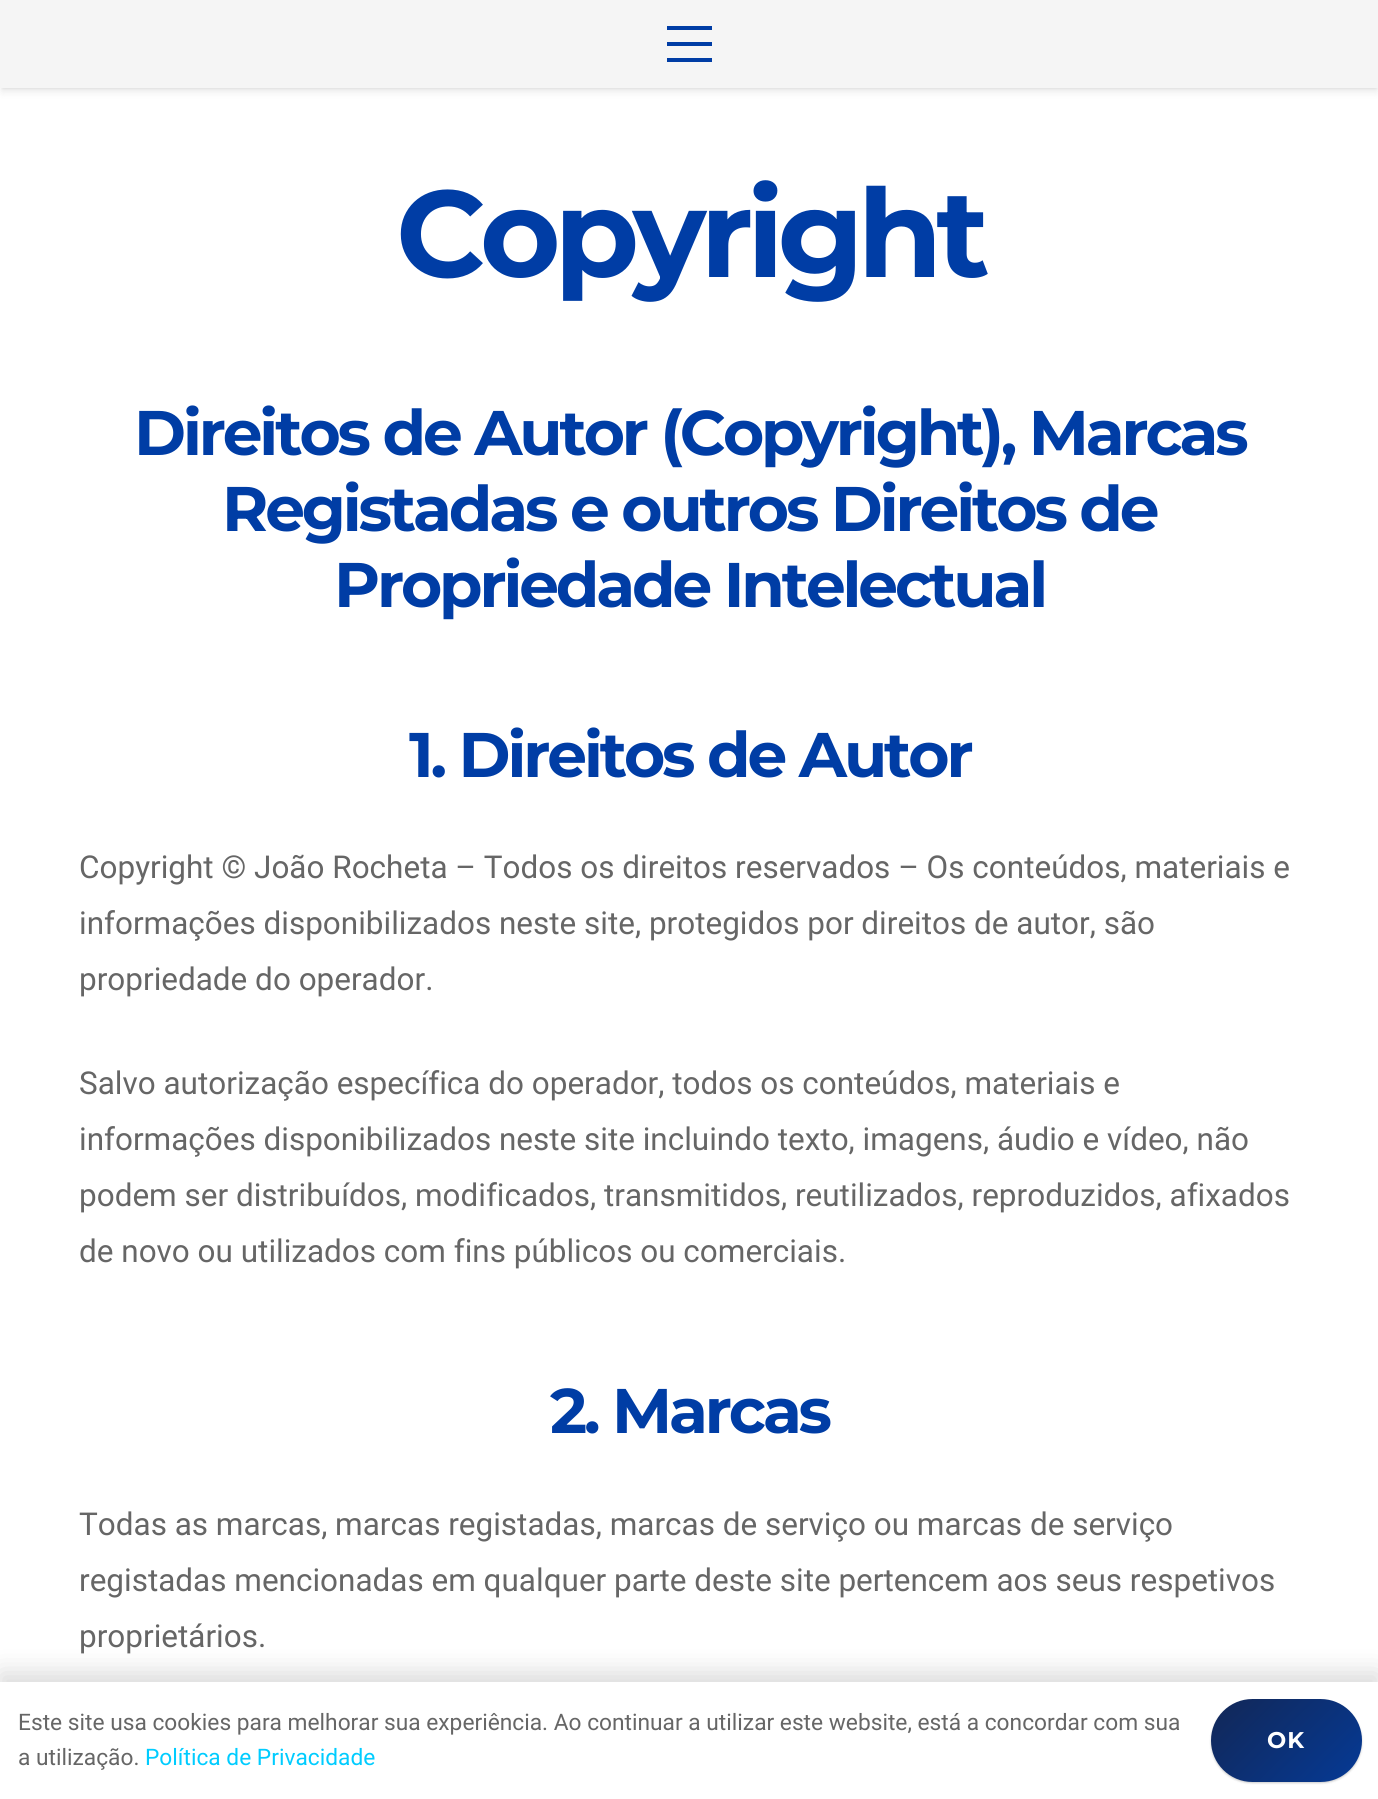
#include <cairo/cairo.h>
#include <math.h>
#include <stddef.h>

typedef struct { double x, y; const char *s; } line_t;
typedef struct { double x, y, w, h; unsigned color; } box_t;
static cairo_t *cr;

static void rgb(unsigned color)
{
	cairo_set_source_rgb(cr, (color >> 16) / 255.0, (color >> 8 & 255) / 255.0, (color & 255) / 255.0);
}

static void tracked(double x, double y, const char *s, double letter, double word)
{
	cairo_move_to(cr, x, y);
	while (*s) {
		char ch[5] = {0};
		int n = 0;
		do ch[n++] = *s++; while ((*s & 0xC0) == 0x80);
		cairo_show_text(cr, ch);
		cairo_rel_move_to(cr, letter + word * (*ch == ' '), 0);
	}
}

static void rrect(double x, double y, double w, double h, double r)
{
	cairo_new_sub_path(cr);
	cairo_arc(cr, x + w - r, y + h - r, r, 0, M_PI / 2);
	cairo_arc(cr, x + r, y + h - r, r, M_PI / 2, M_PI);
	cairo_arc(cr, x + r, y + r, r, M_PI, 1.5 * M_PI);
	cairo_arc(cr, x + w - r, y + r, r, 1.5 * M_PI, 2 * M_PI);
	cairo_close_path(cr);
}

static void soft_shadow(double x, double y, double w, double h, double r, double blur, double alpha)
{
	cairo_push_group_with_content(cr, CAIRO_CONTENT_ALPHA);
	cairo_set_operator(cr, CAIRO_OPERATOR_SOURCE);
	for (int i = 15; i >= -15 && fmin(w, h) + blur * i / 3 > 0; i -= 2) {
		double e = blur * i / 6;
		cairo_set_source_rgba(cr, 0, 0, 0, alpha * erfc((i - 1) / 8.5) / 2);
		rrect(x - e, y - e, w + 2 * e, h + 2 * e, fmax(0, fmin(r + e + blur * .6, fmin(w, h) / 2 + e)));
		cairo_fill(cr);
	}
	cairo_pattern_t *soft = cairo_pop_group(cr);
	cairo_mask(cr, soft);
	cairo_pattern_destroy(soft);
}

int main(void) {
	cairo_surface_t *surface = cairo_image_surface_create(CAIRO_FORMAT_RGB24, 1378, 1799);
	cr = cairo_create(surface);
	cairo_font_options_t *options = cairo_font_options_create();
	cairo_font_options_set_hint_metrics(options, CAIRO_HINT_METRICS_OFF);
	cairo_font_options_set_hint_style(options, CAIRO_HINT_STYLE_NONE);
	cairo_set_font_options(cr, options);
	cairo_set_miter_limit(cr, 4);
	cairo_pattern_t *gradient;
	rgb(0xffffff);
	cairo_paint(cr);
	rgb(0x000000);
	soft_shadow(2, 5, 1375, 84, 0, 1, 0.05);
	soft_shadow(2, 7, 1375, 84, 0, 4.5, 0.1);
	{
		static const box_t items[] = {
			{0, 0, 1378, 88, 0xf5f5f5},
			{667, 42, 45, 4, 0x003da5},
			{667, 26, 45, 4, 0x003da5},
			{667, 58, 45, 4, 0x003da5},
		};
		for (size_t i = 0; i < sizeof items / sizeof *items; i++) {
			rgb(items[i].color);
			cairo_rectangle(cr, items[i].x, items[i].y, items[i].w, items[i].h);
			cairo_fill(cr);
		}
	}
	rgb(0x000000);
	soft_shadow(0, 1673, 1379, 117, 0, 13, 0.15);
	rgb(0xffffff);
	cairo_rectangle(cr, 0, 1682, 1378, 117);
	cairo_fill(cr);
	rgb(0x000000);
	soft_shadow(1211, 1701, 151, 82, 41, 1, 0.2);
	gradient = cairo_pattern_create_linear(1228, 1682, 1344, 1799);
	cairo_pattern_add_color_stop_rgba(gradient, 0, 0.071, 0.153, 0.337, 1);
	cairo_pattern_add_color_stop_rgba(gradient, 1, 0.02, 0.227, 0.588, 1);
	cairo_set_source(cr, gradient);
	cairo_pattern_destroy(gradient);
	rrect(1211, 1699, 151, 83, 41.5);
	cairo_fill(cr);
	cairo_select_font_face(cr, "Montserrat Thin", CAIRO_FONT_SLANT_NORMAL, CAIRO_FONT_WEIGHT_NORMAL);
	cairo_set_font_size(cr, 123);
	rgb(0x003da5);
	tracked(396, 277, "Copyright", -6.25, 0);
	cairo_set_font_size(cr, 63);
	{
		static const line_t items[] = {
			{134, 455, "Direitos de Autor (Copyright), Marcas"},
			{222, 531, "Registadas e outros Direitos de"},
			{334, 607, "Propriedade Intelectual"},
			{409, 777, "1. Direitos de Autor"},
		};
		for (size_t i = 0; i < sizeof items / sizeof *items; i++) {
			tracked(items[i].x, items[i].y, items[i].s, -3.15, 0);
		}
	}
	cairo_select_font_face(cr, "Roboto", CAIRO_FONT_SLANT_NORMAL, CAIRO_FONT_WEIGHT_NORMAL);
	cairo_set_font_size(cr, 31.5);
	rgb(0x666666);
	{
		static const line_t items[] = {
			{79, 878, "Copyright © João Rocheta – Todos os direitos reservados – Os conteúdos, materiais e"},
			{79, 934, "informações disponibilizados neste site, protegidos por direitos de autor, são"},
			{79, 990, "propriedade do operador."},
			{79, 1094, "Salvo autorização específica do operador, todos os conteúdos, materiais e"},
			{79, 1150, "informações disponibilizados neste site incluindo texto, imagens, áudio e vídeo, não"},
			{79, 1206, "podem ser distribuídos, modificados, transmitidos, reutilizados, reproduzidos, afixados"},
			{79, 1262, "de novo ou utilizados com fins públicos ou comerciais."},
		};
		for (size_t i = 0; i < sizeof items / sizeof *items; i++) {
			cairo_move_to(cr, items[i].x, items[i].y);
			cairo_show_text(cr, items[i].s);
		}
	}
	cairo_select_font_face(cr, "Montserrat Thin", CAIRO_FONT_SLANT_NORMAL, CAIRO_FONT_WEIGHT_NORMAL);
	cairo_set_font_size(cr, 63);
	rgb(0x003da5);
	tracked(550, 1433, "2. Marcas", -3.15, 0);
	cairo_select_font_face(cr, "Roboto", CAIRO_FONT_SLANT_NORMAL, CAIRO_FONT_WEIGHT_NORMAL);
	cairo_set_font_size(cr, 31.5);
	rgb(0x666666);
	{
		static const line_t items[] = {
			{79, 1535, "Todas as marcas, marcas registadas, marcas de serviço ou marcas de serviço"},
			{79, 1591, "registadas mencionadas em qualquer parte deste site pertencem aos seus respetivos"},
			{79, 1647, "proprietários."},
		};
		for (size_t i = 0; i < sizeof items / sizeof *items; i++) {
			cairo_move_to(cr, items[i].x, items[i].y);
			cairo_show_text(cr, items[i].s);
		}
	}
	cairo_set_font_size(cr, 22.75);
	cairo_move_to(cr, 18, 1730);
	cairo_show_text(cr, "Este site usa cookies para melhorar sua experiência. Ao continuar a utilizar este website, está a concordar com sua");
	cairo_move_to(cr, 18, 1765);
	cairo_show_text(cr, "a utilização.");
	rgb(0x00ccff);
	cairo_move_to(cr, 145, 1765);
	cairo_show_text(cr, "Política de Privacidade");
	cairo_select_font_face(cr, "Montserrat Thin", CAIRO_FONT_SLANT_NORMAL, CAIRO_FONT_WEIGHT_NORMAL);
	rgb(0xffffff);
	tracked(1267, 1748, "OK", 1, 0);
	cairo_surface_write_to_png(surface, "page.png");
	cairo_font_options_destroy(options);
	cairo_destroy(cr);
	cairo_surface_destroy(surface);
	return 0;
}
